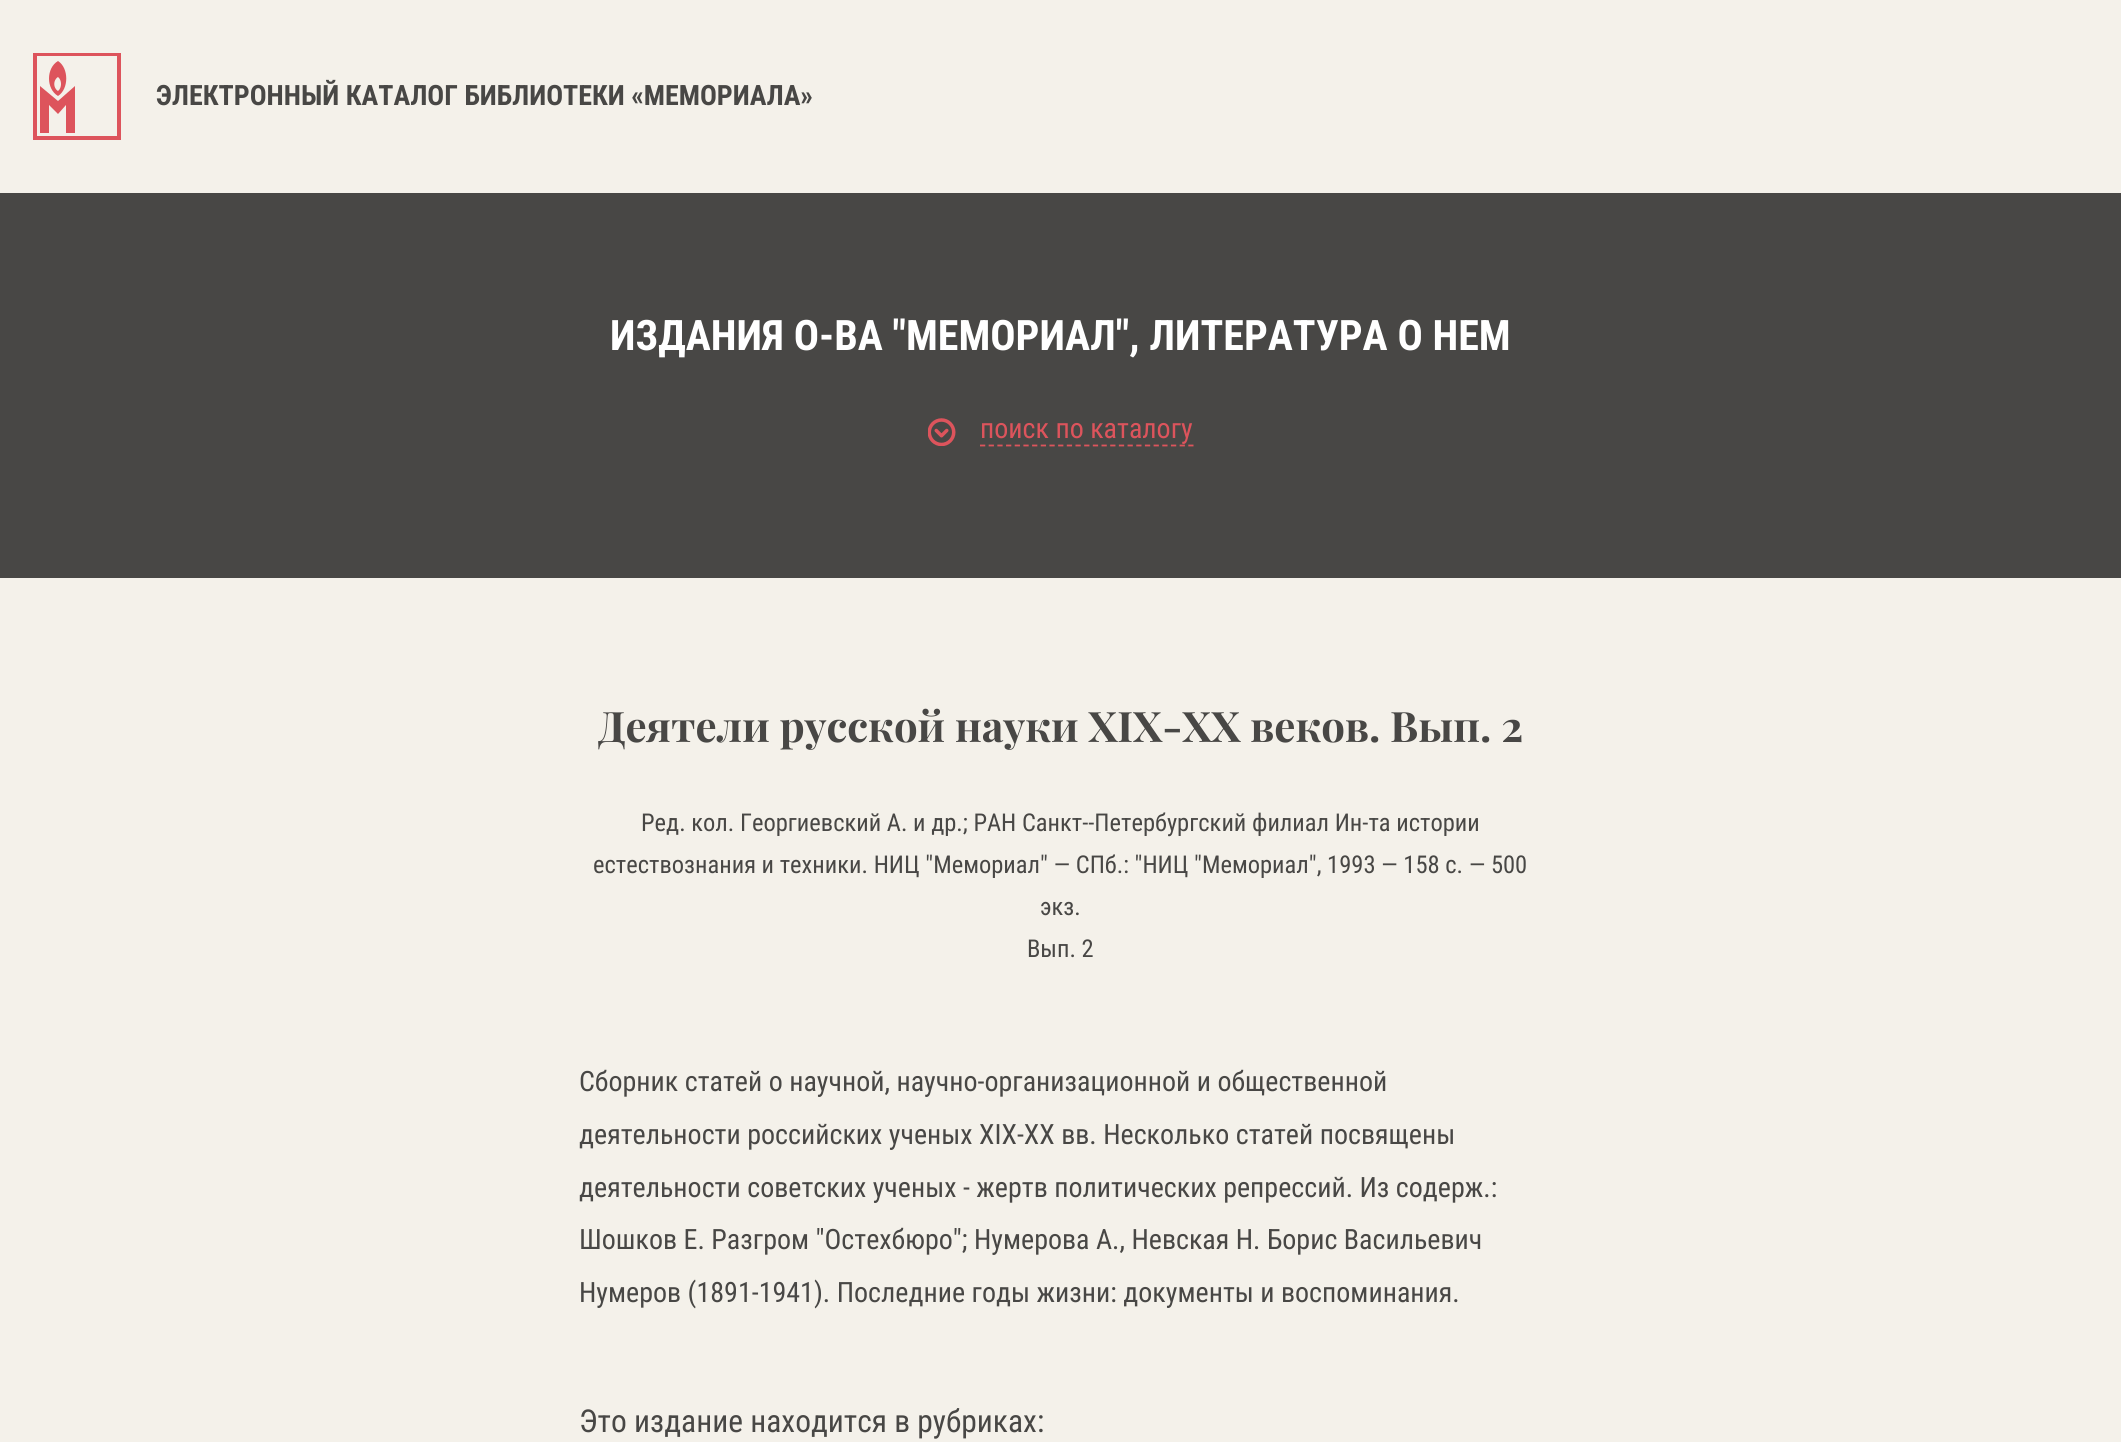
#include <cairo/cairo.h>
#include <math.h>
#include <stddef.h>

typedef struct { double x, y; const char *s; } line_t;
static cairo_t *cr;

static void rgb(unsigned color)
{
	cairo_set_source_rgb(cr, (color >> 16) / 255.0, (color >> 8 & 255) / 255.0, (color & 255) / 255.0);
}

static void image(const char *path, double x, double y, double w, double h)
{
	cairo_surface_t *image = cairo_image_surface_create_from_png(path);
	cairo_save(cr);
	cairo_set_source_surface(cr, image, x, y);
	cairo_rectangle(cr, x, y, w, h);
	cairo_fill(cr);
	cairo_restore(cr);
	cairo_surface_destroy(image);
}

int main(void) {
	cairo_surface_t *surface = cairo_image_surface_create(CAIRO_FORMAT_RGB24, 2121, 1442);
	cr = cairo_create(surface);
	cairo_font_options_t *options = cairo_font_options_create();
	cairo_font_options_set_hint_metrics(options, CAIRO_HINT_METRICS_OFF);
	cairo_font_options_set_hint_style(options, CAIRO_HINT_STYLE_NONE);
	cairo_set_font_options(cr, options);
	cairo_set_miter_limit(cr, 4);
	rgb(0xf4f1ea);
	cairo_paint(cr);
	cairo_save(cr);
	cairo_rectangle(cr, 33, 53, 88, 87);
	cairo_clip(cr);
	rgb(0xdd545c);
	cairo_set_fill_rule(cr, CAIRO_FILL_RULE_EVEN_ODD);
	cairo_new_path(cr);
	cairo_move_to(cr, 33, 140);
	cairo_line_to(cr, 33, 52);
	cairo_line_to(cr, 121, 52);
	cairo_line_to(cr, 121, 140);
	cairo_close_path(cr);
	cairo_move_to(cr, 117, 56);
	cairo_line_to(cr, 37, 56);
	cairo_line_to(cr, 37, 136);
	cairo_line_to(cr, 117, 136);
	cairo_close_path(cr);
	cairo_move_to(cr, 75, 86);
	cairo_line_to(cr, 75, 133);
	cairo_line_to(cr, 66, 133);
	cairo_line_to(cr, 66, 105);
	cairo_line_to(cr, 58, 114);
	cairo_line_to(cr, 49, 105);
	cairo_line_to(cr, 49, 133);
	cairo_line_to(cr, 40, 133);
	cairo_line_to(cr, 40, 86);
	cairo_line_to(cr, 58, 101);
	cairo_close_path(cr);
	cairo_move_to(cr, 58, 96);
	cairo_curve_to(cr, 46, 89, 46, 68, 58, 61);
	cairo_curve_to(cr, 69, 68, 69, 89, 58, 96);
	cairo_close_path(cr);
	cairo_move_to(cr, 58, 77);
	cairo_curve_to(cr, 53, 80, 53, 88, 58, 91);
	cairo_curve_to(cr, 62, 88, 62, 80, 58, 77);
	cairo_close_path(cr);
	cairo_fill(cr);
	cairo_restore(cr);
	rgb(0x484745);
	cairo_rectangle(cr, 0, 193, 2121, 385);
	cairo_fill(cr);
	image("img/1.png", 928, 418, 28, 28);
	cairo_new_path(cr);
	cairo_move_to(cr, 980, 445.5);
	cairo_line_to(cr, 1193.5, 445.5);
	rgb(0xdd545c);
	cairo_set_line_width(cr, 1.8);
	cairo_set_dash(cr, (double[]){5.25, 3.43}, 2, 0);
	cairo_stroke(cr);
	cairo_select_font_face(cr, "Roboto Condensed", CAIRO_FONT_SLANT_NORMAL, CAIRO_FONT_WEIGHT_BOLD);
	cairo_set_font_size(cr, 28);
	rgb(0x484745);
	cairo_move_to(cr, 156, 105);
	cairo_show_text(cr, "ЭЛЕКТРОННЫЙ КАТАЛОГ БИБЛИОТЕКИ «МЕМОРИАЛА»");
	cairo_set_font_size(cr, 42);
	rgb(0xffffff);
	cairo_move_to(cr, 610, 350);
	cairo_show_text(cr, "ИЗДАНИЯ О-ВА \"МЕМОРИАЛ\", ЛИТЕРАТУРА О НЕМ");
	cairo_select_font_face(cr, "Roboto Condensed", CAIRO_FONT_SLANT_NORMAL, CAIRO_FONT_WEIGHT_NORMAL);
	cairo_set_font_size(cr, 28);
	rgb(0xdd545c);
	cairo_move_to(cr, 980, 438);
	cairo_show_text(cr, "поиск по каталогу");
	cairo_select_font_face(cr, "Playfair Display", CAIRO_FONT_SLANT_NORMAL, CAIRO_FONT_WEIGHT_BOLD);
	cairo_set_font_size(cr, 42);
	rgb(0x484745);
	cairo_move_to(cr, 598, 742);
	cairo_show_text(cr, "Деятели русской науки XIX-XX веков. Вып. 2");
	cairo_select_font_face(cr, "Roboto Condensed", CAIRO_FONT_SLANT_NORMAL, CAIRO_FONT_WEIGHT_NORMAL);
	cairo_set_font_size(cr, 24.5);
	{
		static const line_t items[] = {
			{641, 831, "Ред. кол. Георгиевский А. и др.; РАН Санкт--Петербургский филиал Ин-та истории"},
			{593, 873, "естествознания и техники. НИЦ \"Мемориал\" — СПб.: \"НИЦ \"Мемориал\", 1993 — 158 с. — 500"},
			{1040, 915, "экз."},
			{1027, 957, "Вып. 2"},
		};
		for (size_t i = 0; i < sizeof items / sizeof *items; i++) {
			cairo_move_to(cr, items[i].x, items[i].y);
			cairo_show_text(cr, items[i].s);
		}
	}
	cairo_set_font_size(cr, 28);
	{
		static const line_t items[] = {
			{579, 1091, "Сборник статей о научной, научно-организационной и общественной"},
			{579, 1144, "деятельности российских ученых XIX-XX вв. Несколько статей посвящены"},
			{579, 1197, "деятельности советских ученых - жертв политических репрессий. Из содерж.:"},
			{579, 1249, "Шошков Е. Разгром \"Остехбюро\"; Нумерова А., Невская Н. Борис Васильевич"},
			{579, 1302, "Нумеров (1891-1941). Последние годы жизни: документы и воспоминания."},
		};
		for (size_t i = 0; i < sizeof items / sizeof *items; i++) {
			cairo_move_to(cr, items[i].x, items[i].y);
			cairo_show_text(cr, items[i].s);
		}
	}
	cairo_set_font_size(cr, 31.5);
	cairo_move_to(cr, 579, 1432);
	cairo_show_text(cr, "Это издание находится в рубриках:");
	cairo_surface_write_to_png(surface, "page.png");
	cairo_font_options_destroy(options);
	cairo_destroy(cr);
	cairo_surface_destroy(surface);
	return 0;
}
